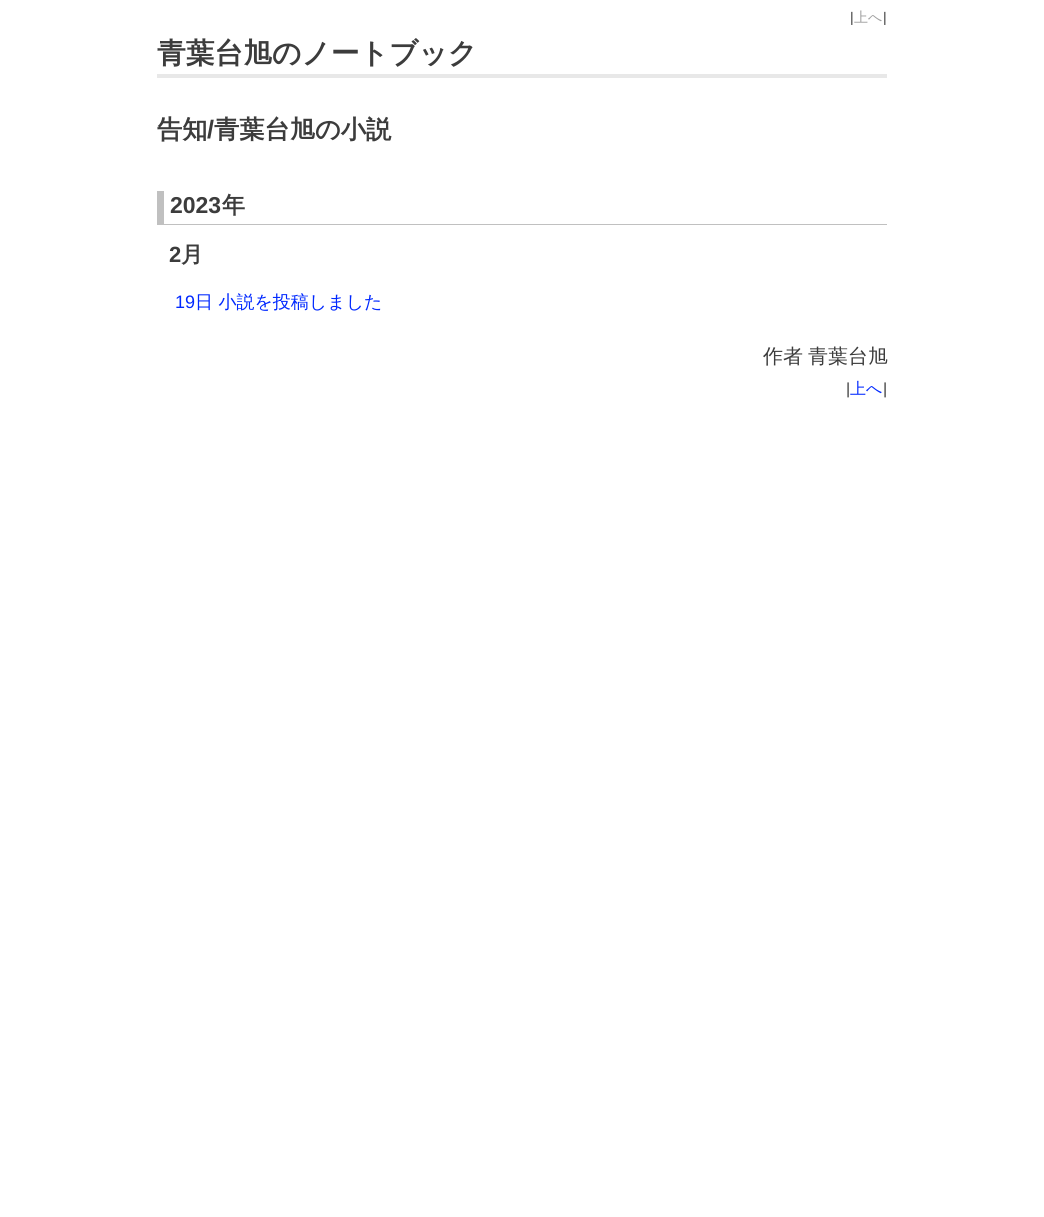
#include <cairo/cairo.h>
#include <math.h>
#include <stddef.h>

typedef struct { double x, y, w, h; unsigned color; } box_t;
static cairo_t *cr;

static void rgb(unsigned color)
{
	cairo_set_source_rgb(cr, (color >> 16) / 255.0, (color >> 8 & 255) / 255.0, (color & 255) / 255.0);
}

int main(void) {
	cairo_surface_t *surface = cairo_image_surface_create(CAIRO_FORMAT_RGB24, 1044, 1217);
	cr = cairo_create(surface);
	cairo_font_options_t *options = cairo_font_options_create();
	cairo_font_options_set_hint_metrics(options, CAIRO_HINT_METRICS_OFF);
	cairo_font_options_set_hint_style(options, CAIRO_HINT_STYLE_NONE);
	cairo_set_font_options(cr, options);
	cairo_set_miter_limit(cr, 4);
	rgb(0xffffff);
	cairo_paint(cr);
	{
		static const box_t items[] = {
			{157, 74, 730, 4, 0xe8e8e8},
			{157, 224, 730, 1, 0xc0c0c0},
			{157, 191, 7, 34, 0xc0c0c0},
		};
		for (size_t i = 0; i < sizeof items / sizeof *items; i++) {
			rgb(items[i].color);
			cairo_rectangle(cr, items[i].x, items[i].y, items[i].w, items[i].h);
			cairo_fill(cr);
		}
	}
	cairo_select_font_face(cr, "Liberation Sans", CAIRO_FONT_SLANT_NORMAL, CAIRO_FONT_WEIGHT_NORMAL);
	cairo_set_font_size(cr, 14);
	rgb(0x3c3c3c);
	cairo_move_to(cr, 850, 22);
	cairo_show_text(cr, "|");
	cairo_select_font_face(cr, "WenQuanYi Zen Hei Medium", CAIRO_FONT_SLANT_NORMAL, CAIRO_FONT_WEIGHT_NORMAL);
	rgb(0xa0a0a0);
	cairo_move_to(cr, 854, 22);
	cairo_show_text(cr, "上へ");
	cairo_select_font_face(cr, "Liberation Sans", CAIRO_FONT_SLANT_NORMAL, CAIRO_FONT_WEIGHT_NORMAL);
	rgb(0x3c3c3c);
	cairo_move_to(cr, 883, 22);
	cairo_show_text(cr, "|");
	cairo_select_font_face(cr, "WenQuanYi Zen Hei", CAIRO_FONT_SLANT_NORMAL, CAIRO_FONT_WEIGHT_BOLD);
	cairo_set_font_size(cr, 28.75);
	cairo_move_to(cr, 157, 63);
	cairo_show_text(cr, "青葉台旭のノートブック");
	cairo_set_font_size(cr, 25.25);
	cairo_move_to(cr, 157, 138);
	cairo_show_text(cr, "告知");
	cairo_select_font_face(cr, "Liberation Sans", CAIRO_FONT_SLANT_NORMAL, CAIRO_FONT_WEIGHT_BOLD);
	cairo_move_to(cr, 207, 138);
	cairo_show_text(cr, "/");
	cairo_select_font_face(cr, "WenQuanYi Zen Hei", CAIRO_FONT_SLANT_NORMAL, CAIRO_FONT_WEIGHT_BOLD);
	cairo_move_to(cr, 214, 138);
	cairo_show_text(cr, "青葉台旭の小説");
	cairo_select_font_face(cr, "Liberation Sans", CAIRO_FONT_SLANT_NORMAL, CAIRO_FONT_WEIGHT_BOLD);
	cairo_set_font_size(cr, 23);
	cairo_move_to(cr, 170, 213);
	cairo_show_text(cr, "2023");
	cairo_select_font_face(cr, "WenQuanYi Zen Hei", CAIRO_FONT_SLANT_NORMAL, CAIRO_FONT_WEIGHT_BOLD);
	cairo_move_to(cr, 222, 213);
	cairo_show_text(cr, "年");
	cairo_select_font_face(cr, "Liberation Sans", CAIRO_FONT_SLANT_NORMAL, CAIRO_FONT_WEIGHT_BOLD);
	cairo_set_font_size(cr, 22);
	cairo_move_to(cr, 169, 262);
	cairo_show_text(cr, "2");
	cairo_select_font_face(cr, "WenQuanYi Zen Hei", CAIRO_FONT_SLANT_NORMAL, CAIRO_FONT_WEIGHT_BOLD);
	cairo_move_to(cr, 181, 262);
	cairo_show_text(cr, "月");
	cairo_select_font_face(cr, "Liberation Sans", CAIRO_FONT_SLANT_NORMAL, CAIRO_FONT_WEIGHT_NORMAL);
	cairo_set_font_size(cr, 18);
	rgb(0x0028ff);
	cairo_move_to(cr, 175, 308);
	cairo_show_text(cr, "19");
	cairo_select_font_face(cr, "WenQuanYi Zen Hei Medium", CAIRO_FONT_SLANT_NORMAL, CAIRO_FONT_WEIGHT_NORMAL);
	cairo_move_to(cr, 195, 308);
	cairo_show_text(cr, "日 小説を投稿しました");
	cairo_set_font_size(cr, 20);
	rgb(0x3c3c3c);
	cairo_move_to(cr, 763, 363);
	cairo_show_text(cr, "作者");
	cairo_move_to(cr, 808, 363);
	cairo_show_text(cr, "青葉台旭");
	cairo_select_font_face(cr, "Liberation Sans", CAIRO_FONT_SLANT_NORMAL, CAIRO_FONT_WEIGHT_NORMAL);
	cairo_set_font_size(cr, 16);
	cairo_move_to(cr, 846, 394);
	cairo_show_text(cr, "|");
	cairo_select_font_face(cr, "WenQuanYi Zen Hei Medium", CAIRO_FONT_SLANT_NORMAL, CAIRO_FONT_WEIGHT_NORMAL);
	rgb(0x0028ff);
	cairo_move_to(cr, 850, 394);
	cairo_show_text(cr, "上へ");
	cairo_select_font_face(cr, "Liberation Sans", CAIRO_FONT_SLANT_NORMAL, CAIRO_FONT_WEIGHT_NORMAL);
	rgb(0x3c3c3c);
	cairo_move_to(cr, 883, 394);
	cairo_show_text(cr, "|");
	cairo_surface_write_to_png(surface, "page.png");
	cairo_font_options_destroy(options);
	cairo_destroy(cr);
	cairo_surface_destroy(surface);
	return 0;
}
